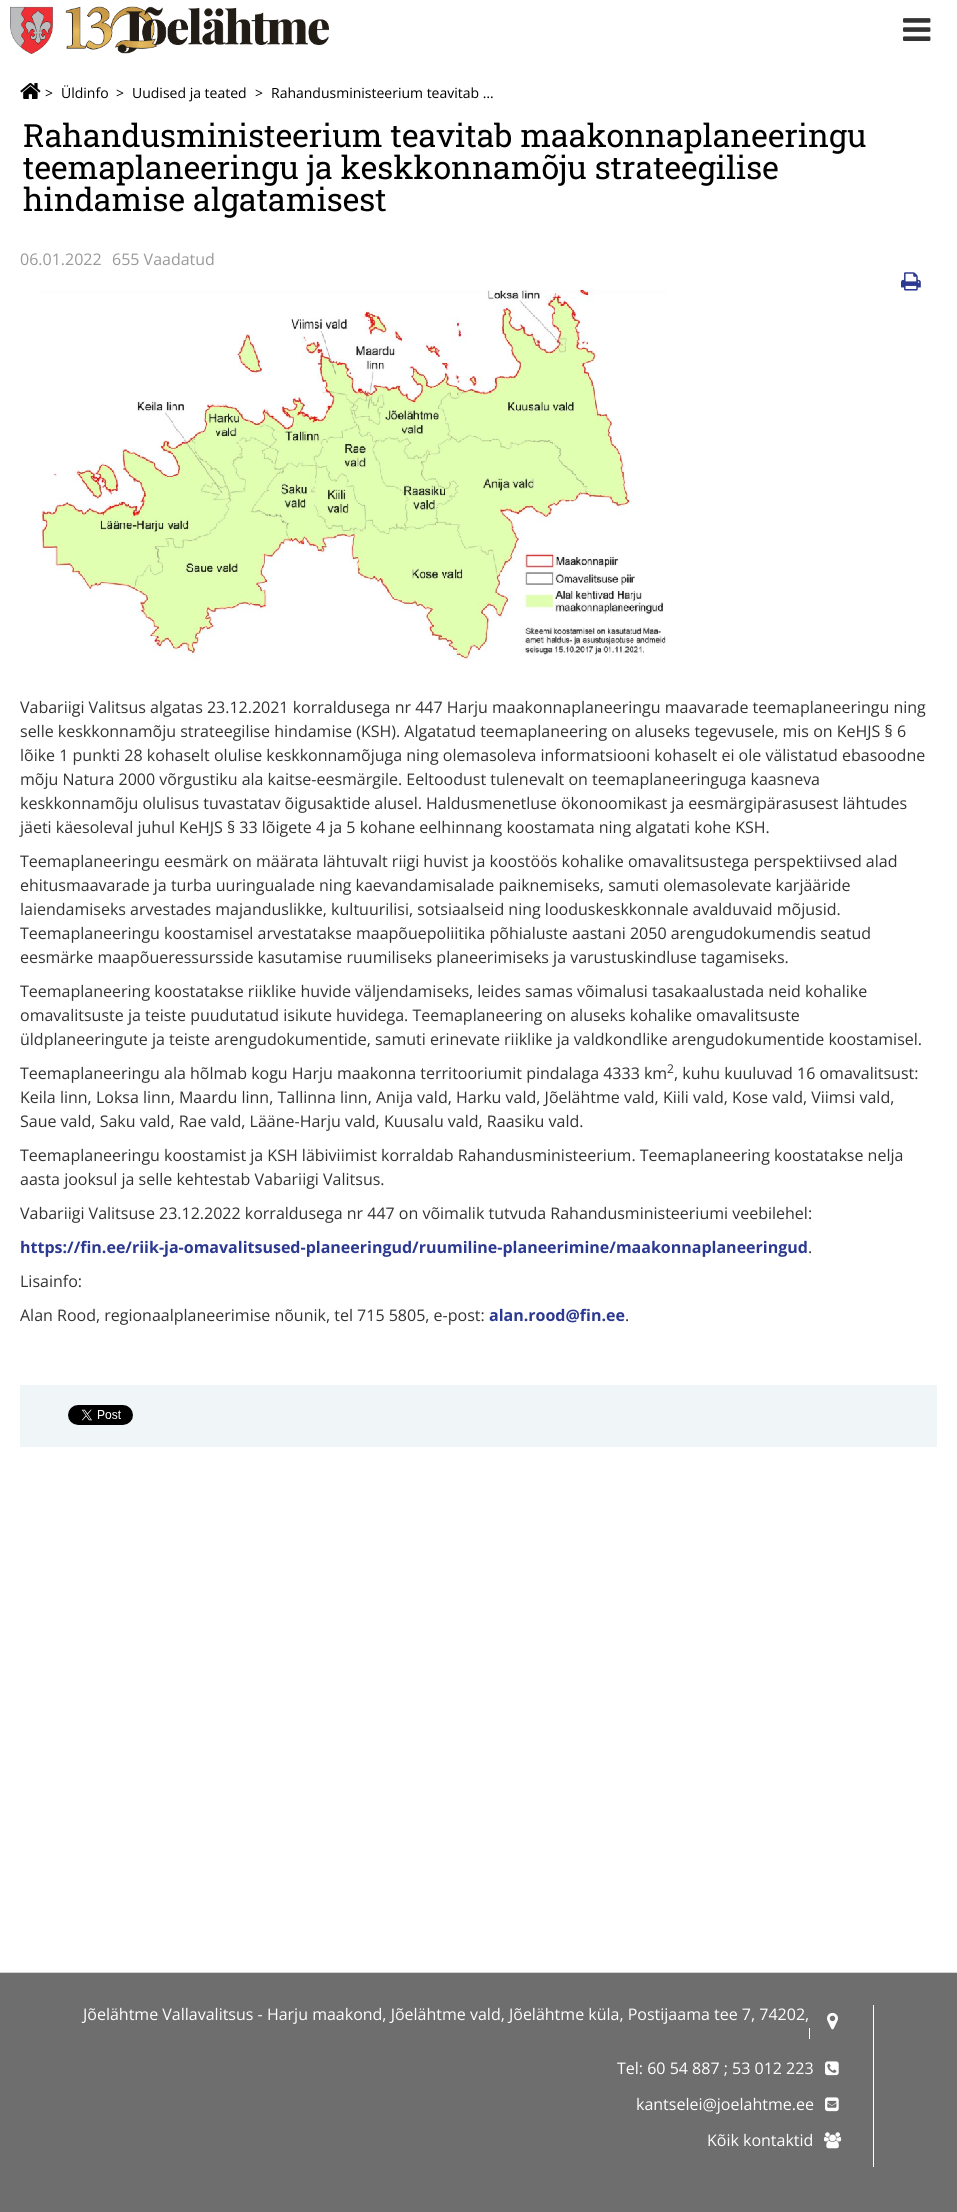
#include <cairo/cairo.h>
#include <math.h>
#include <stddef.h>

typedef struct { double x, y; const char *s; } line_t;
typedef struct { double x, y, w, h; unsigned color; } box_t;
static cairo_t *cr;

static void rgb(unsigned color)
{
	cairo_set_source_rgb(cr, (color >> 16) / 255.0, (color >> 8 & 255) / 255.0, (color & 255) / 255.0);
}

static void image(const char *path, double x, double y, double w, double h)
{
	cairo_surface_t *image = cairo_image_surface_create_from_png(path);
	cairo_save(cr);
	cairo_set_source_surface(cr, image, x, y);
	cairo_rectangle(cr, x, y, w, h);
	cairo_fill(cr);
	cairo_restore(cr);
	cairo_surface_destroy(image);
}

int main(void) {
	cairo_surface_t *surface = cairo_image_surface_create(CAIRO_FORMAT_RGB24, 957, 2212);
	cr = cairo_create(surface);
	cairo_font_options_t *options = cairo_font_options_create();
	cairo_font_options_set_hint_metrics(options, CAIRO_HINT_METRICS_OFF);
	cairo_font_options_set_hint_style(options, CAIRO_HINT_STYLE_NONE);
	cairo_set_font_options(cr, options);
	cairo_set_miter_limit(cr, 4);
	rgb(0xffffff);
	cairo_paint(cr);
	image("img/1.png", 10, 6, 319, 48);
	image("img/2.png", 903, 18, 28, 23);
	image("img/3.png", 20, 83, 21, 16);
	image("img/4.png", 901, 272, 20, 19);
	image("img/5.png", 41, 290, 627, 370);
	rgb(0xf0f5f7);
	cairo_rectangle(cr, 20, 1385, 917, 62);
	cairo_fill(cr);
	image("img/6.png", 68, 1405, 65, 20);
	{
		static const box_t items[] = {
			{0, 1973, 957, 239, 0x6e6e6e},
			{0, 1972, 957, 1, 0xd1d3d4},
			{873, 2005, 1, 162, 0xffffff},
			{809, 2028, 1, 11, 0xffffff},
		};
		for (size_t i = 0; i < sizeof items / sizeof *items; i++) {
			rgb(items[i].color);
			cairo_rectangle(cr, items[i].x, items[i].y, items[i].w, items[i].h);
			cairo_fill(cr);
		}
	}
	image("img/7.png", 827, 2012, 11, 18);
	image("img/8.png", 825, 2061, 14, 15);
	image("img/9.png", 825, 2097, 14, 15);
	image("img/10.png", 824, 2132, 18, 17);
	cairo_select_font_face(cr, "Open Sans", CAIRO_FONT_SLANT_NORMAL, CAIRO_FONT_WEIGHT_NORMAL);
	cairo_set_font_size(cr, 14);
	rgb(0x000000);
	{
		static const line_t items[] = {
			{45, 98, ">"},
			{61, 98, "Üldinfo"},
			{116, 98, ">"},
			{132, 98, "Uudised ja teated"},
			{255, 98, ">"},
			{271, 98, "Rahandusministeerium teavitab …"},
		};
		for (size_t i = 0; i < sizeof items / sizeof *items; i++) {
			cairo_move_to(cr, items[i].x, items[i].y);
			cairo_show_text(cr, items[i].s);
		}
	}
	cairo_select_font_face(cr, "Roboto Slab", CAIRO_FONT_SLANT_NORMAL, CAIRO_FONT_WEIGHT_NORMAL);
	cairo_set_font_size(cr, 32);
	{
		static const line_t items[] = {
			{23, 147, "Rahandusministeerium teavitab maakonnaplaneeringu"},
			{23, 179, "teemaplaneeringu ja keskkonnamõju strateegilise"},
			{23, 211, "hindamise algatamisest"},
		};
		for (size_t i = 0; i < sizeof items / sizeof *items; i++) {
			cairo_move_to(cr, items[i].x, items[i].y);
			cairo_show_text(cr, items[i].s);
		}
	}
	cairo_select_font_face(cr, "Open Sans", CAIRO_FONT_SLANT_NORMAL, CAIRO_FONT_WEIGHT_NORMAL);
	cairo_set_font_size(cr, 16);
	rgb(0x999999);
	cairo_move_to(cr, 20, 265);
	cairo_show_text(cr, "06.01.2022");
	cairo_move_to(cr, 112, 265);
	cairo_show_text(cr, "655 Vaadatud");
	rgb(0x333333);
	{
		static const line_t items[] = {
			{20, 713, "Vabariigi Valitsus algatas 23.12.2021 korraldusega nr 447 Harju maakonnaplaneeringu maavarade teemaplaneeringu ning"},
			{20, 737, "selle keskkonnamõju strateegilise hindamise (KSH). Algatatud teemaplaneering on aluseks tegevusele, mis on KeHJS § 6"},
			{20, 761, "lõike 1 punkti 28 kohaselt olulise keskkonnamõjuga ning olemasoleva informatsiooni kohaselt ei ole välistatud ebasoodne"},
			{20, 785, "mõju Natura 2000 võrgustiku ala kaitse-eesmärgile. Eeltoodust tulenevalt on teemaplaneeringuga kaasneva"},
			{20, 809, "keskkonnamõju olulisus tuvastatav õigusaktide alusel. Haldusmenetluse ökonoomikast ja eesmärgipärasusest lähtudes"},
			{20, 833, "jäeti käesoleval juhul KeHJS § 33 lõigete 4 ja 5 kohane eelhinnang koostamata ning algatati kohe KSH."},
			{20, 867, "Teemaplaneeringu eesmärk on määrata lähtuvalt riigi huvist ja koostöös kohalike omavalitsustega perspektiivsed alad"},
			{20, 891, "ehitusmaavarade ja turba uuringualade ning kaevandamisalade paiknemiseks, samuti olemasolevate karjääride"},
			{20, 915, "laiendamiseks arvestades majanduslikke, kultuurilisi, sotsiaalseid ning looduskeskkonnale avalduvaid mõjusid."},
			{20, 939, "Teemaplaneeringu koostamisel arvestatakse maapõuepoliitika põhialuste aastani 2050 arengudokumendis seatud"},
			{20, 963, "eesmärke maapõueressursside kasutamise ruumiliseks planeerimiseks ja varustuskindluse tagamiseks."},
			{20, 997, "Teemaplaneering koostatakse riiklike huvide väljendamiseks, leides samas võimalusi tasakaalustada neid kohalike"},
			{20, 1021, "omavalitsuste ja teiste puudutatud isikute huvidega. Teemaplaneering on aluseks kohalike omavalitsuste"},
			{20, 1045, "üldplaneeringute ja teiste arengudokumentide, samuti erinevate riiklike ja valdkondlike arengudokumentide koostamisel."},
			{20, 1079, "Teemaplaneeringu ala hõlmab kogu Harju maakonna territooriumit pindalaga 4333 km"},
		};
		for (size_t i = 0; i < sizeof items / sizeof *items; i++) {
			cairo_move_to(cr, items[i].x, items[i].y);
			cairo_show_text(cr, items[i].s);
		}
	}
	cairo_set_font_size(cr, 12);
	cairo_move_to(cr, 667, 1073);
	cairo_show_text(cr, "2");
	cairo_set_font_size(cr, 16);
	{
		static const line_t items[] = {
			{674, 1079, ", kuhu kuuluvad 16 omavalitsust:"},
			{20, 1103, "Keila linn, Loksa linn, Maardu linn, Tallinna linn, Anija vald, Harku vald, Jõelähtme vald, Kiili vald, Kose vald, Viimsi vald,"},
			{20, 1127, "Saue vald, Saku vald, Rae vald, Lääne-Harju vald, Kuusalu vald, Raasiku vald."},
			{20, 1161, "Teemaplaneeringu koostamist ja KSH läbiviimist korraldab Rahandusministeerium. Teemaplaneering koostatakse nelja"},
			{20, 1185, "aasta jooksul ja selle kehtestab Vabariigi Valitsus."},
			{20, 1219, "Vabariigi Valitsuse 23.12.2022 korraldusega nr 447 on võimalik tutvuda Rahandusministeeriumi veebilehel:"},
		};
		for (size_t i = 0; i < sizeof items / sizeof *items; i++) {
			cairo_move_to(cr, items[i].x, items[i].y);
			cairo_show_text(cr, items[i].s);
		}
	}
	cairo_select_font_face(cr, "Open Sans", CAIRO_FONT_SLANT_NORMAL, CAIRO_FONT_WEIGHT_BOLD);
	rgb(0x2b3990);
	cairo_move_to(cr, 20, 1253);
	cairo_show_text(cr, "https://fin.ee/riik-ja-omavalitsused-planeeringud/ruumiline-planeerimine/maakonnaplaneeringud");
	cairo_select_font_face(cr, "Open Sans", CAIRO_FONT_SLANT_NORMAL, CAIRO_FONT_WEIGHT_NORMAL);
	rgb(0x333333);
	{
		static const line_t items[] = {
			{808, 1253, "."},
			{20, 1287, "Lisainfo:"},
			{20, 1321, "Alan Rood, regionaalplaneerimise nõunik, tel 715 5805, e-post:"},
		};
		for (size_t i = 0; i < sizeof items / sizeof *items; i++) {
			cairo_move_to(cr, items[i].x, items[i].y);
			cairo_show_text(cr, items[i].s);
		}
	}
	cairo_select_font_face(cr, "Open Sans", CAIRO_FONT_SLANT_NORMAL, CAIRO_FONT_WEIGHT_BOLD);
	rgb(0x2b3990);
	cairo_move_to(cr, 489, 1321);
	cairo_show_text(cr, "alan.rood@fin.ee");
	cairo_select_font_face(cr, "Open Sans", CAIRO_FONT_SLANT_NORMAL, CAIRO_FONT_WEIGHT_NORMAL);
	rgb(0x333333);
	cairo_move_to(cr, 625, 1321);
	cairo_show_text(cr, ".");
	rgb(0xffffff);
	{
		static const line_t items[] = {
			{83, 2020, "Jõelähtme Vallavalitsus - Harju maakond, Jõelähtme vald, Jõelähtme küla, Postijaama tee 7, 74202,"},
			{617, 2074, "Tel: 60 54 887 ; 53 012 223"},
			{636, 2110, "kantselei@joelahtme.ee"},
			{707, 2146, "Kõik kontaktid"},
		};
		for (size_t i = 0; i < sizeof items / sizeof *items; i++) {
			cairo_move_to(cr, items[i].x, items[i].y);
			cairo_show_text(cr, items[i].s);
		}
	}
	cairo_surface_write_to_png(surface, "page.png");
	cairo_font_options_destroy(options);
	cairo_destroy(cr);
	cairo_surface_destroy(surface);
	return 0;
}
